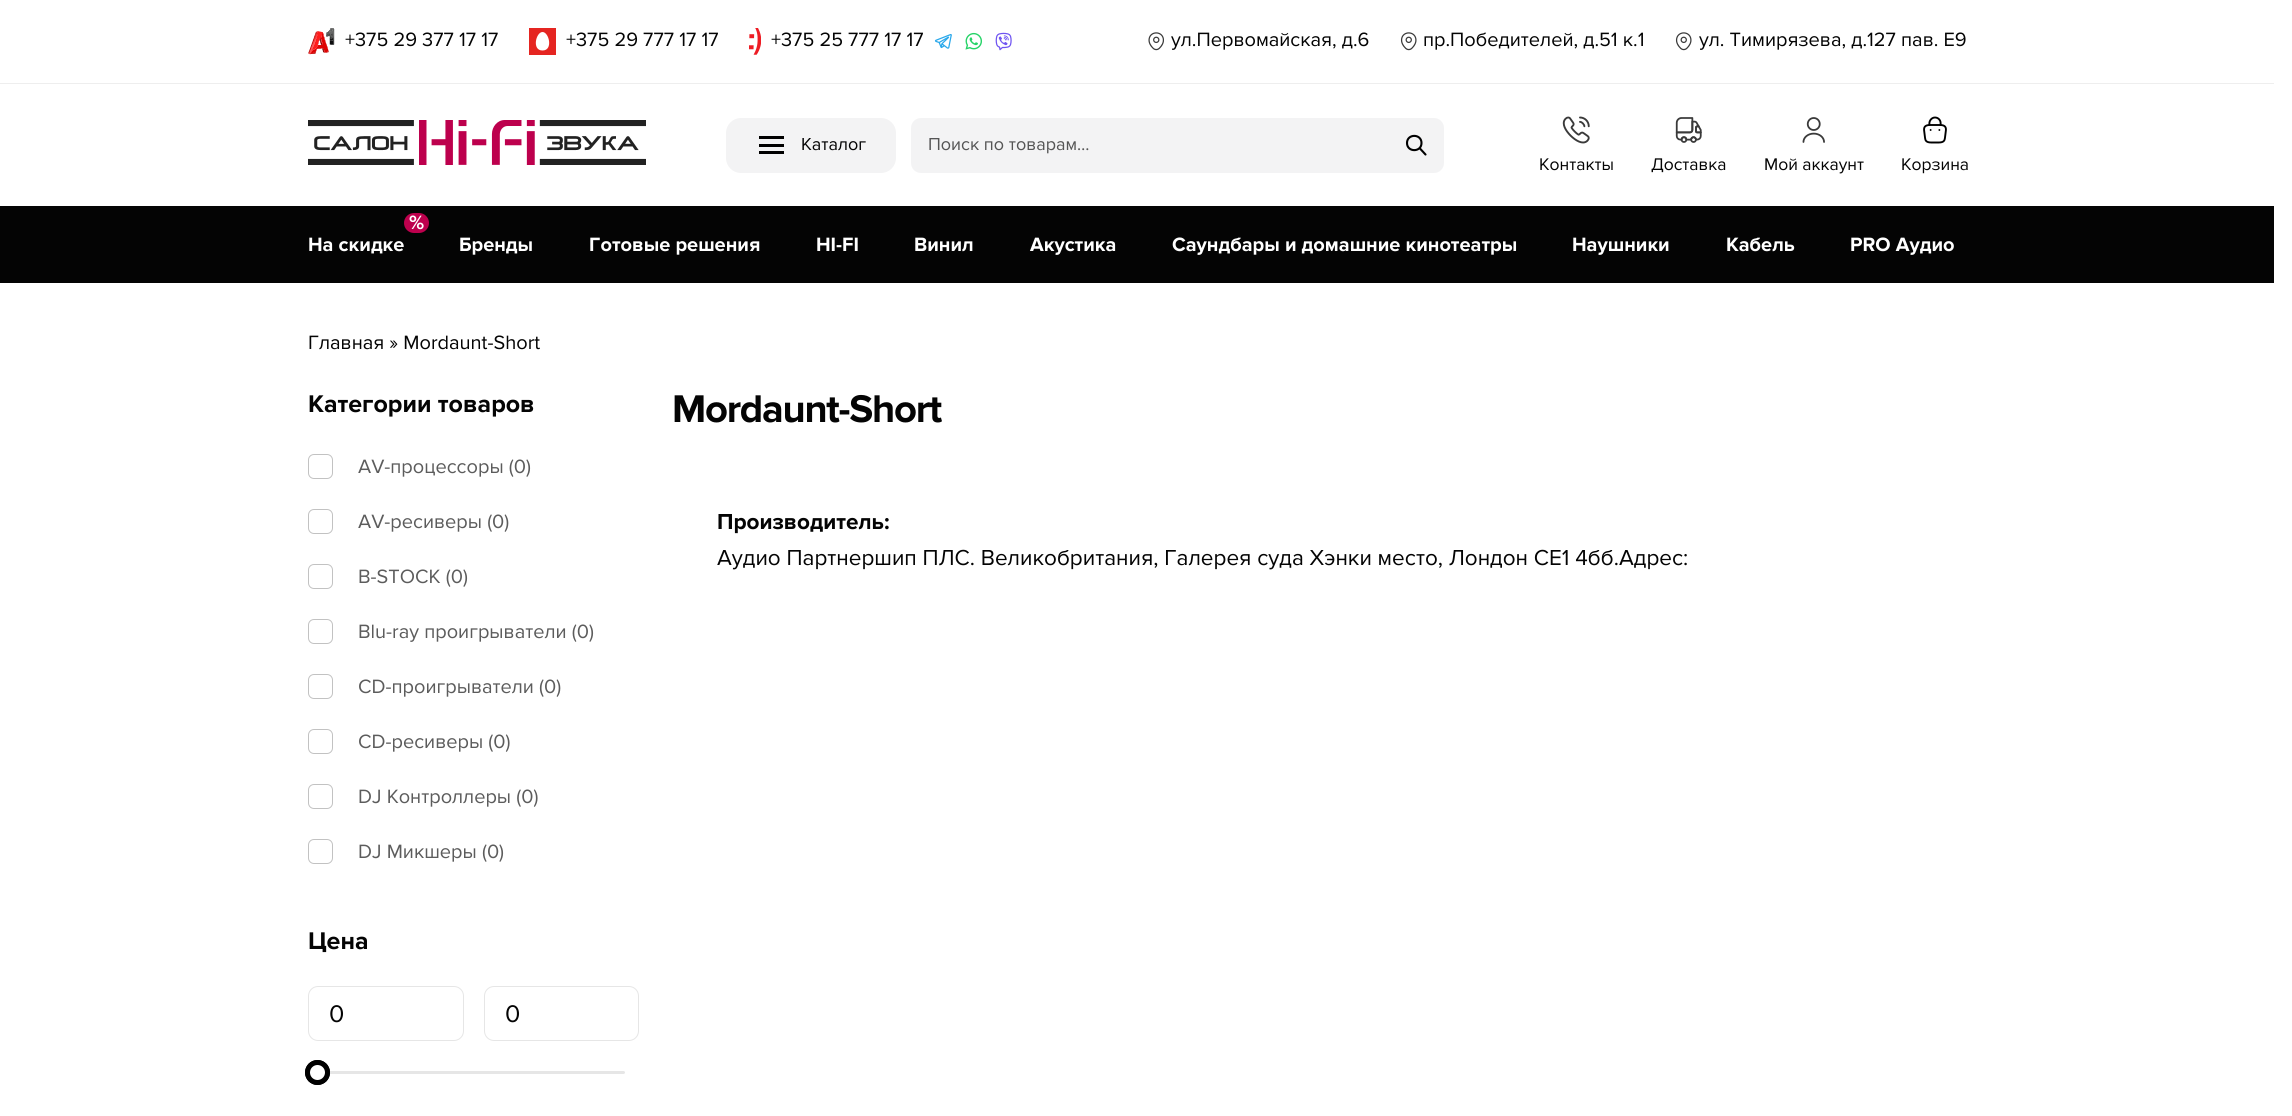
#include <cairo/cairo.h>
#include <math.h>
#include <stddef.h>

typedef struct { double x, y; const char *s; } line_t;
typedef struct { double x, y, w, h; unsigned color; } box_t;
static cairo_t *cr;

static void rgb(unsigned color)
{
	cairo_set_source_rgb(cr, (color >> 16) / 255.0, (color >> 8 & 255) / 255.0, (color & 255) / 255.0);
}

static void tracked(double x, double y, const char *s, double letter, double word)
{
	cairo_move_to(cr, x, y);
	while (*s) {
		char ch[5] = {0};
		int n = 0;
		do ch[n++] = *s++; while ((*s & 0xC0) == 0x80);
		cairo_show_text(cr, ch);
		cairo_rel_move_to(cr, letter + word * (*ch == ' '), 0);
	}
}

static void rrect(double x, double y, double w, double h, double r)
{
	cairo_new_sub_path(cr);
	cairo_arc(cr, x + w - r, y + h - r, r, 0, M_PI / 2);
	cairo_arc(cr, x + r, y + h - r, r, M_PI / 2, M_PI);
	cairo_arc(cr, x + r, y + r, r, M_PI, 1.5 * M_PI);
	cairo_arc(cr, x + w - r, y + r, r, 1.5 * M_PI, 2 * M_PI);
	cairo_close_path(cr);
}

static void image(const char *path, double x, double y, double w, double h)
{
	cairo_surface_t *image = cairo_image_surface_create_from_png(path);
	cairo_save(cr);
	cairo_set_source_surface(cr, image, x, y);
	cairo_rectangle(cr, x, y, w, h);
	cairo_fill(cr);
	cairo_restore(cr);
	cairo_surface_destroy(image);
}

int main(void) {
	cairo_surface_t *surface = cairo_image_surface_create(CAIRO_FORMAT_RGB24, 2292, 1116);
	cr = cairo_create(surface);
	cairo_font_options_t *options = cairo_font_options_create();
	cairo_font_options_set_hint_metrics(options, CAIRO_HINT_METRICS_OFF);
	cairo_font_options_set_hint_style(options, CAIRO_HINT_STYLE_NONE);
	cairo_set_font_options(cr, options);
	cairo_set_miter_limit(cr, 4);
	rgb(0xffffff);
	cairo_paint(cr);
	rgb(0xeeeeee);
	cairo_rectangle(cr, 0, 83, 2274, 1);
	cairo_fill(cr);
	image("img/1.png", 308, 28, 27, 27);
	rgb(0xe52521);
	cairo_rectangle(cr, 529, 28, 27, 27);
	cairo_fill(cr);
	rgb(0xffffff);
	cairo_new_path(cr);
	cairo_move_to(cr, 542.5, 32);
	cairo_curve_to(cr, 549, 32, 553.5, 50.5, 542.5, 50.5);
	cairo_curve_to(cr, 531.5, 50.5, 536, 32, 542.5, 32);
	cairo_fill(cr);
	image("img/2.png", 749, 28, 12, 27);
	image("img/3.png", 934, 34, 18, 15);
	image("img/4.png", 965, 32, 17, 18);
	image("img/5.png", 995, 32, 17, 19);
	image("img/6.png", 1148, 32, 16, 19);
	image("img/7.png", 1400, 32, 17, 19);
	image("img/7.png", 1675, 32, 17, 19);
	image("img/8.png", 308, 120, 338, 45);
	rgb(0xf3f3f4);
	rrect(726, 118, 170, 55, 15);
	cairo_fill(cr);
	{
		static const box_t items[] = {
			{759, 144, 25, 3, 0x000000},
			{759, 136, 25, 3, 0x000000},
			{759, 151, 25, 3, 0x000000},
		};
		for (size_t i = 0; i < sizeof items / sizeof *items; i++) {
			rgb(items[i].color);
			cairo_rectangle(cr, items[i].x, items[i].y, items[i].w, items[i].h);
			cairo_fill(cr);
		}
	}
	rgb(0xf3f3f4);
	rrect(912.5, 119.5, 530, 52, 8.5);
	cairo_fill_preserve(cr);
	cairo_set_line_width(cr, 3);
	cairo_stroke(cr);
	cairo_new_path(cr);
	cairo_move_to(cr, 1425.5, 154.5);
	cairo_line_to(cr, 1419.5, 148);
	cairo_move_to(cr, 1421.5, 143);
	cairo_curve_to(cr, 1421.5, 152.5, 1407, 152.5, 1407, 143);
	cairo_curve_to(cr, 1407, 133.5, 1421.5, 133.5, 1421.5, 143);
	cairo_close_path(cr);
	rgb(0x000000);
	cairo_set_line_width(cr, 2.1);
	cairo_set_line_cap(cr, CAIRO_LINE_CAP_ROUND);
	cairo_set_line_join(cr, CAIRO_LINE_JOIN_ROUND);
	cairo_stroke(cr);
	image("img/9.png", 1562, 116, 28, 28);
	image("img/10.png", 1675, 117, 27, 26);
	image("img/11.png", 1802, 117, 23, 26);
	image("img/12.png", 1923, 116, 24, 28);
	rgb(0x040404);
	cairo_rectangle(cr, 0, 206, 2274, 77);
	cairo_fill(cr);
	rgb(0xbd004d);
	rrect(404, 213, 25, 20, 10);
	cairo_fill(cr);
	rrect(308.5, 454.5, 24, 24, 5.5);
	rgb(0xc2c2c2);
	cairo_set_line_width(cr, 1);
	cairo_set_line_cap(cr, CAIRO_LINE_CAP_BUTT);
	cairo_set_line_join(cr, CAIRO_LINE_JOIN_MITER);
	cairo_stroke(cr);
	rrect(308.5, 509.5, 24, 24, 5.5);
	cairo_stroke(cr);
	rrect(308.5, 564.5, 24, 24, 5.5);
	cairo_stroke(cr);
	rrect(308.5, 619.5, 24, 24, 5.5);
	cairo_stroke(cr);
	rrect(308.5, 674.5, 24, 24, 5.5);
	cairo_stroke(cr);
	rrect(308.5, 729.5, 24, 24, 5.5);
	cairo_stroke(cr);
	rrect(308.5, 784.5, 24, 24, 5.5);
	cairo_stroke(cr);
	rrect(308.5, 839.5, 24, 24, 5.5);
	cairo_stroke(cr);
	rrect(308.5, 986.5, 155, 54, 9.5);
	rgb(0xe6e6e6);
	cairo_stroke(cr);
	rrect(484.5, 986.5, 154, 54, 9.5);
	cairo_stroke(cr);
	rrect(321, 1071, 304, 3, 1.5);
	cairo_fill(cr);
	cairo_arc(cr, 317.5, 1072.5, 10, 0, 2 * M_PI);
	rgb(0x000000);
	cairo_set_line_width(cr, 5);
	cairo_stroke(cr);
	rgb(0xffffff);
	cairo_arc(cr, 317.5, 1072.5, 10, 0, 2 * M_PI);
	cairo_fill_preserve(cr);
	rgb(0x000000);
	cairo_stroke(cr);
	cairo_select_font_face(cr, "Proxima Nova", CAIRO_FONT_SLANT_NORMAL, CAIRO_FONT_WEIGHT_NORMAL);
	cairo_set_font_size(cr, 20);
	rgb(0x040404);
	{
		static const line_t items[] = {
			{345, 46, "+375 29 377 17 17"},
			{566, 46, "+375 29 777 17 17"},
			{771, 46, "+375 25 777 17 17"},
			{1171, 46, "ул.Первомайская, д.6"},
			{1423, 46, "пр.Победителей, д.51 к.1"},
			{1699, 46, "ул. Тимирязева, д.127 пав. Е9"},
		};
		for (size_t i = 0; i < sizeof items / sizeof *items; i++) {
			cairo_move_to(cr, items[i].x, items[i].y);
			cairo_show_text(cr, items[i].s);
		}
	}
	cairo_set_font_size(cr, 18);
	cairo_move_to(cr, 801, 150);
	cairo_show_text(cr, "Каталог");
	rgb(0x555555);
	cairo_move_to(cr, 928, 150);
	cairo_show_text(cr, "Поиск по товарам…");
	cairo_set_font_size(cr, 17.5);
	rgb(0x040404);
	{
		static const line_t items[] = {
			{1539, 170, "Контакты"},
			{1651, 170, "Доставка"},
			{1764, 170, "Мой аккаунт"},
			{1901, 170, "Корзина"},
		};
		for (size_t i = 0; i < sizeof items / sizeof *items; i++) {
			cairo_move_to(cr, items[i].x, items[i].y);
			cairo_show_text(cr, items[i].s);
		}
	}
	cairo_select_font_face(cr, "Proxima Nova", CAIRO_FONT_SLANT_NORMAL, CAIRO_FONT_WEIGHT_BOLD);
	cairo_set_font_size(cr, 20);
	rgb(0xffffff);
	{
		static const line_t items[] = {
			{409, 229, "%"},
			{308, 251, "На скидке"},
			{459, 251, "Бренды"},
			{589, 251, "Готовые решения"},
			{816, 251, "HI-FI"},
			{914, 251, "Винил"},
			{1030, 251, "Акустика"},
			{1172, 251, "Саундбары и домашние кинотеатры"},
			{1572, 251, "Наушники"},
			{1726, 251, "Кабель"},
			{1850, 251, "PRO Аудио"},
		};
		for (size_t i = 0; i < sizeof items / sizeof *items; i++) {
			cairo_move_to(cr, items[i].x, items[i].y);
			cairo_show_text(cr, items[i].s);
		}
	}
	cairo_select_font_face(cr, "Proxima Nova", CAIRO_FONT_SLANT_NORMAL, CAIRO_FONT_WEIGHT_NORMAL);
	rgb(0x040404);
	cairo_move_to(cr, 308, 349);
	cairo_show_text(cr, "Главная » Mordaunt-Short");
	cairo_select_font_face(cr, "Proxima Nova", CAIRO_FONT_SLANT_NORMAL, CAIRO_FONT_WEIGHT_BOLD);
	cairo_set_font_size(cr, 25);
	cairo_move_to(cr, 308, 412);
	cairo_show_text(cr, "Категории товаров");
	cairo_select_font_face(cr, "Proxima Nova", CAIRO_FONT_SLANT_NORMAL, CAIRO_FONT_WEIGHT_NORMAL);
	cairo_set_font_size(cr, 20);
	rgb(0x5c5c5c);
	{
		static const line_t items[] = {
			{358, 473, "AV-процессоры (0)"},
			{358, 528, "AV-ресиверы (0)"},
			{358, 583, "B-STOCK (0)"},
			{358, 638, "Blu-ray проигрыватели (0)"},
			{358, 693, "CD-проигрыватели (0)"},
			{358, 748, "CD-ресиверы (0)"},
			{358, 803, "DJ Контроллеры (0)"},
			{358, 858, "DJ Микшеры (0)"},
		};
		for (size_t i = 0; i < sizeof items / sizeof *items; i++) {
			cairo_move_to(cr, items[i].x, items[i].y);
			cairo_show_text(cr, items[i].s);
		}
	}
	cairo_select_font_face(cr, "Proxima Nova", CAIRO_FONT_SLANT_NORMAL, CAIRO_FONT_WEIGHT_BOLD);
	cairo_set_font_size(cr, 25);
	rgb(0x040404);
	cairo_move_to(cr, 308, 949);
	cairo_show_text(cr, "Цена");
	cairo_select_font_face(cr, "Proxima Nova", CAIRO_FONT_SLANT_NORMAL, CAIRO_FONT_WEIGHT_NORMAL);
	cairo_move_to(cr, 329, 1022);
	cairo_show_text(cr, "0");
	cairo_move_to(cr, 505, 1022);
	cairo_show_text(cr, "0");
	cairo_select_font_face(cr, "Proxima Nova", CAIRO_FONT_SLANT_NORMAL, CAIRO_FONT_WEIGHT_BOLD);
	cairo_set_font_size(cr, 40);
	tracked(672, 422, "Mordaunt-Short", -1.25, 0);
	cairo_set_font_size(cr, 22.5);
	cairo_move_to(cr, 717, 529);
	cairo_show_text(cr, "Производитель:");
	cairo_select_font_face(cr, "Proxima Nova", CAIRO_FONT_SLANT_NORMAL, CAIRO_FONT_WEIGHT_NORMAL);
	cairo_move_to(cr, 717, 565);
	cairo_show_text(cr, "Аудио Партнершип ПЛС. Великобритания, Галерея суда Хэнки место, Лондон СЕ1 4бб.Адрес:");
	cairo_surface_write_to_png(surface, "page.png");
	cairo_font_options_destroy(options);
	cairo_destroy(cr);
	cairo_surface_destroy(surface);
	return 0;
}
